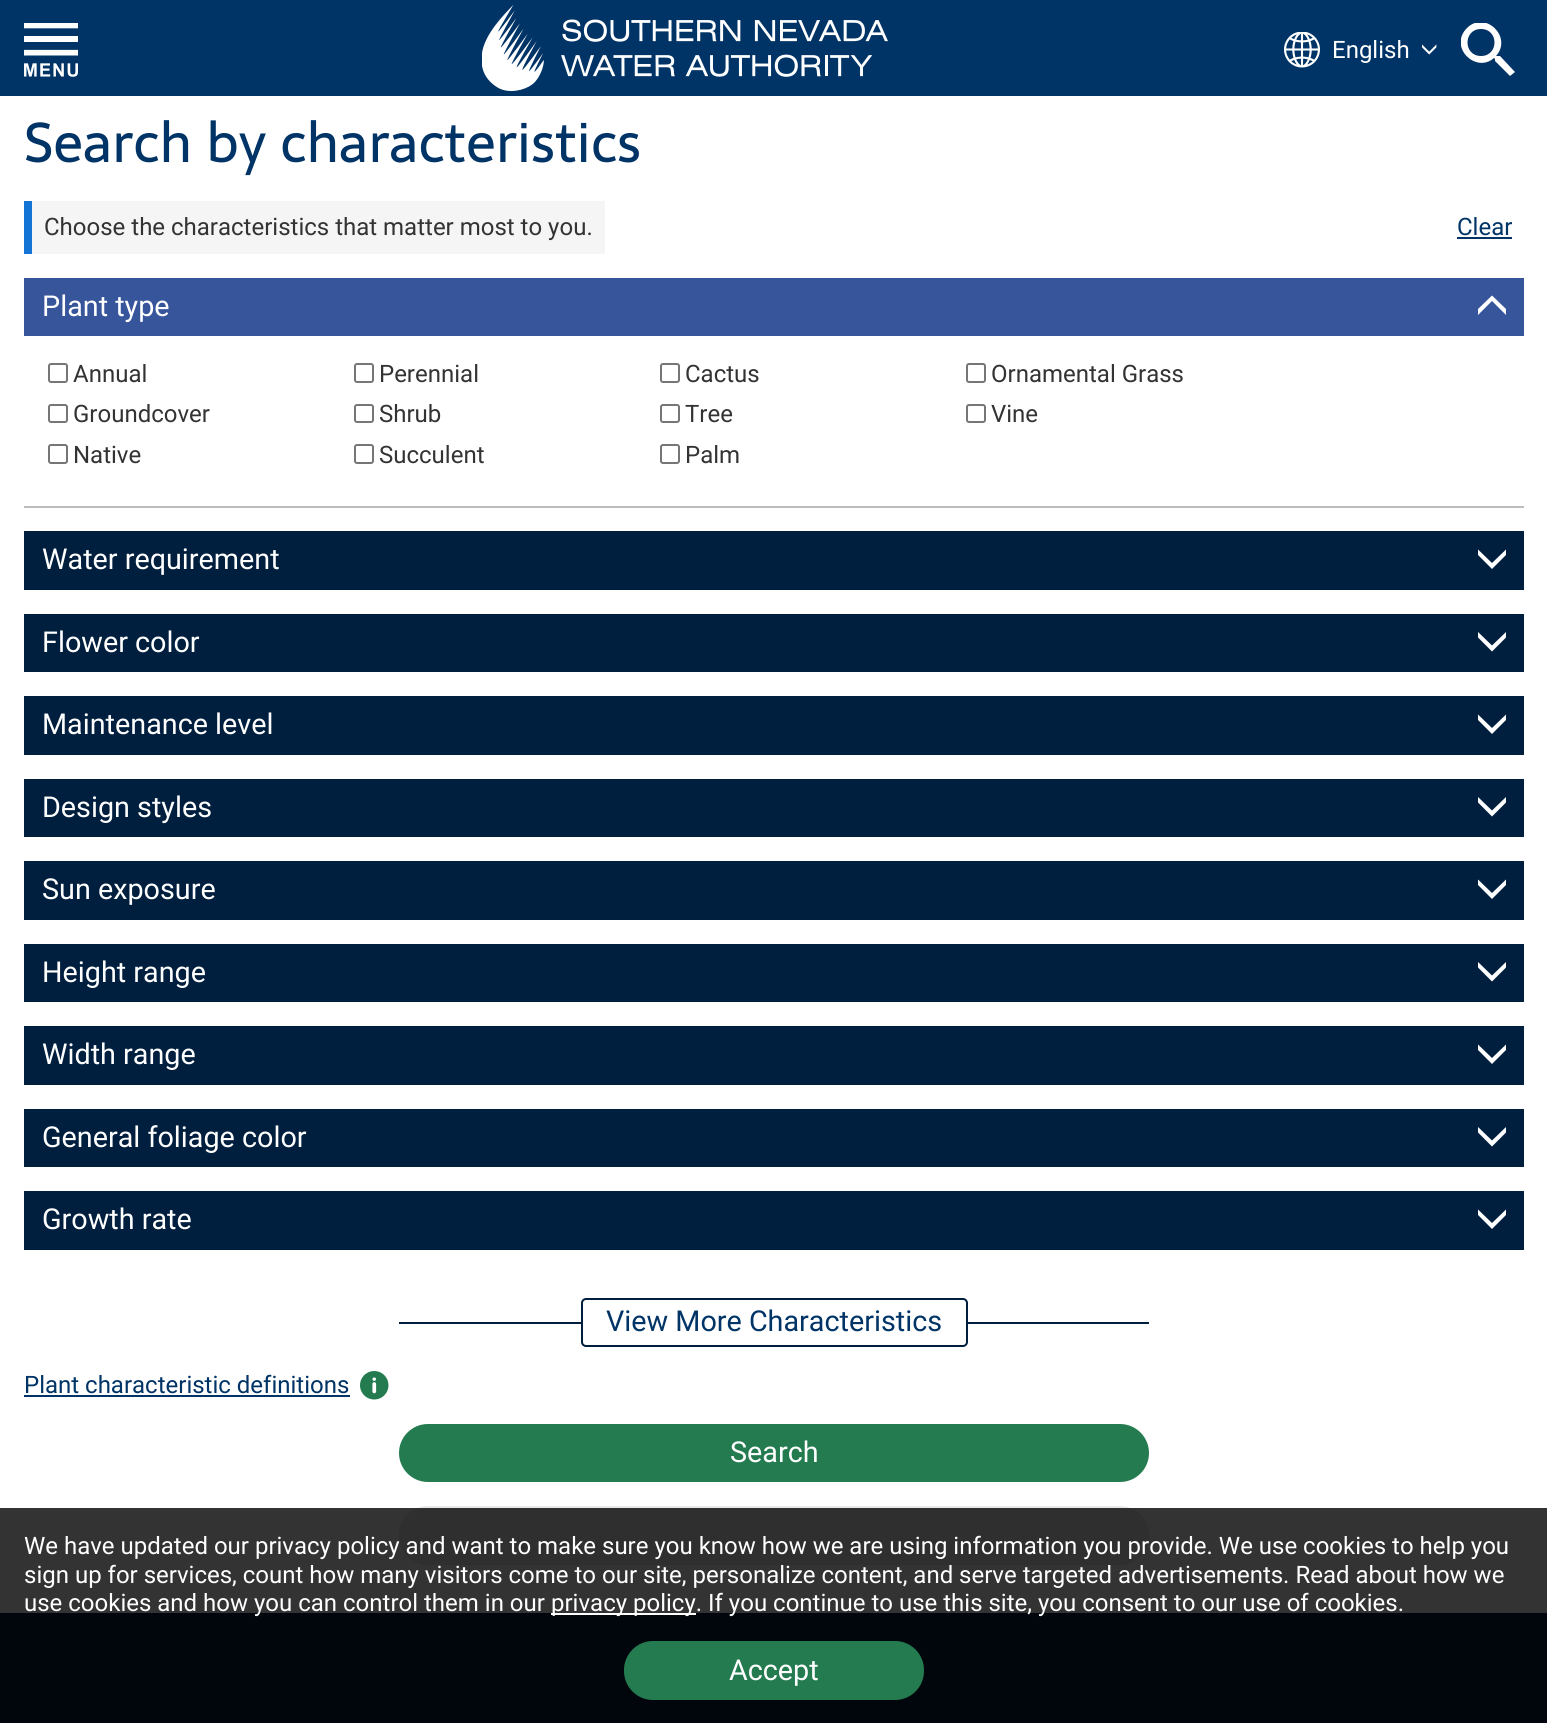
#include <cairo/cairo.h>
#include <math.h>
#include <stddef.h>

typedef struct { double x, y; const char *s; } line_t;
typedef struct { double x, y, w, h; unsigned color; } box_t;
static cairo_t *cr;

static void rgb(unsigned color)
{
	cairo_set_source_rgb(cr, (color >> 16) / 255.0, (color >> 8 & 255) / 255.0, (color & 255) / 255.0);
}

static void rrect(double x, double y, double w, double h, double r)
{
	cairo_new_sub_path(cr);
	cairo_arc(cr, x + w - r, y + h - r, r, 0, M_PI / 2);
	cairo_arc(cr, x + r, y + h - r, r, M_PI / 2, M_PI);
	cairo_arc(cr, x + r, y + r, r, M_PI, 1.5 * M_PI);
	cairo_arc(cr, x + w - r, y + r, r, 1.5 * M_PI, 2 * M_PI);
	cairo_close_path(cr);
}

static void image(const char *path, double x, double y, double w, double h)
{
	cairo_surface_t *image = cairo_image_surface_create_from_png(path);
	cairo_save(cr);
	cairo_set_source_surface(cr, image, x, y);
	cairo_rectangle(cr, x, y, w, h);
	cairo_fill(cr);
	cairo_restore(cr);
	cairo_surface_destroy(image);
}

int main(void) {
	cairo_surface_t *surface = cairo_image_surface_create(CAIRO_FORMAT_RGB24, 1547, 1723);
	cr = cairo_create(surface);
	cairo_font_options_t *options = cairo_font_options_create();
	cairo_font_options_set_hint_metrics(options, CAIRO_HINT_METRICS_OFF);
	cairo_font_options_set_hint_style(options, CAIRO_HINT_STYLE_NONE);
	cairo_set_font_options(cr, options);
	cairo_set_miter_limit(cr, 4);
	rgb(0xffffff);
	cairo_paint(cr);
	rgb(0x003366);
	cairo_rectangle(cr, 0, 0, 1547, 96);
	cairo_fill(cr);
	image("img/1.png", 24, 23, 54, 54);
	image("img/2.png", 482, 5, 406, 86);
	image("img/3.png", 1284, 32, 36, 36);
	image("img/4.png", 1422, 44, 15, 11);
	cairo_save(cr);
	cairo_rectangle(cr, 1461, 23, 54, 54);
	cairo_clip(cr);
	rgb(0xffffff);
	cairo_new_path(cr);
	cairo_move_to(cr, 1500, 56);
	cairo_line_to(cr, 1497, 56);
	cairo_line_to(cr, 1496, 56);
	cairo_curve_to(cr, 1513, 37, 1485, 10, 1467, 28);
	cairo_curve_to(cr, 1448, 47, 1476, 74, 1494, 58);
	cairo_line_to(cr, 1495, 59);
	cairo_line_to(cr, 1495, 61);
	cairo_line_to(cr, 1510, 76);
	cairo_line_to(cr, 1515, 72);
	cairo_close_path(cr);
	cairo_move_to(cr, 1481, 56);
	cairo_curve_to(cr, 1463, 56, 1463, 29, 1481, 29);
	cairo_curve_to(cr, 1499, 29, 1499, 56, 1481, 56);
	cairo_close_path(cr);
	cairo_fill(cr);
	cairo_restore(cr);
	{
		static const box_t items[] = {
			{32, 201, 573, 53, 0xf5f5f5},
			{24, 201, 8, 53, 0x1374d6},
			{1457, 237, 55, 2, 0x003366},
			{24, 278, 1500, 58, 0x37559b},
		};
		for (size_t i = 0; i < sizeof items / sizeof *items; i++) {
			rgb(items[i].color);
			cairo_rectangle(cr, items[i].x, items[i].y, items[i].w, items[i].h);
			cairo_fill(cr);
		}
	}
	cairo_save(cr);
	cairo_rectangle(cr, 1478, 291, 28, 30);
	cairo_clip(cr);
	rgb(0xffffff);
	cairo_new_path(cr);
	cairo_move_to(cr, 1506.5, 315.5);
	cairo_line_to(cr, 1506.5, 309.5);
	cairo_line_to(cr, 1492, 295.5);
	cairo_line_to(cr, 1477.5, 309.5);
	cairo_line_to(cr, 1477.5, 315.5);
	cairo_line_to(cr, 1492, 301);
	cairo_close_path(cr);
	cairo_fill(cr);
	cairo_restore(cr);
	rgb(0xbcbcbc);
	cairo_rectangle(cr, 24, 506, 1500, 2);
	cairo_fill(cr);
	rrect(49, 364, 18, 18, 2);
	rgb(0x767676);
	cairo_stroke(cr);
	rrect(355, 364, 18, 18, 2);
	cairo_stroke(cr);
	rrect(661, 364, 18, 18, 2);
	cairo_stroke(cr);
	rrect(967, 364, 18, 18, 2);
	cairo_stroke(cr);
	rrect(49, 405, 18, 17, 2);
	cairo_stroke(cr);
	rrect(355, 405, 18, 17, 2);
	cairo_stroke(cr);
	rrect(661, 405, 18, 17, 2);
	cairo_stroke(cr);
	rrect(967, 405, 18, 17, 2);
	cairo_stroke(cr);
	rrect(49, 445, 18, 18, 2);
	cairo_stroke(cr);
	rrect(355, 445, 18, 18, 2);
	cairo_stroke(cr);
	rrect(661, 445, 18, 18, 2);
	cairo_stroke(cr);
	rgb(0x001f3e);
	cairo_rectangle(cr, 24, 531, 1500, 59);
	cairo_fill(cr);
	cairo_save(cr);
	cairo_rectangle(cr, 1478, 545, 28, 30);
	cairo_clip(cr);
	rgb(0xffffff);
	cairo_new_path(cr);
	cairo_move_to(cr, 1477.5, 549);
	cairo_line_to(cr, 1477.5, 554.5);
	cairo_line_to(cr, 1492, 569);
	cairo_line_to(cr, 1506.5, 554.5);
	cairo_line_to(cr, 1506.5, 549);
	cairo_line_to(cr, 1492, 563);
	cairo_close_path(cr);
	cairo_fill(cr);
	cairo_restore(cr);
	cairo_rectangle(cr, 24, 614, 1500, 58);
	cairo_fill(cr);
	cairo_save(cr);
	cairo_rectangle(cr, 1478, 627, 28, 30);
	cairo_clip(cr);
	rgb(0xffffff);
	cairo_new_path(cr);
	cairo_move_to(cr, 1477.5, 631.5);
	cairo_line_to(cr, 1477.5, 637);
	cairo_line_to(cr, 1492, 651.5);
	cairo_line_to(cr, 1506.5, 637);
	cairo_line_to(cr, 1506.5, 631.5);
	cairo_line_to(cr, 1492, 645.5);
	cairo_close_path(cr);
	cairo_fill(cr);
	cairo_restore(cr);
	cairo_rectangle(cr, 24, 696, 1500, 59);
	cairo_fill(cr);
	cairo_save(cr);
	cairo_rectangle(cr, 1478, 710, 28, 30);
	cairo_clip(cr);
	rgb(0xffffff);
	cairo_new_path(cr);
	cairo_move_to(cr, 1477.5, 714);
	cairo_line_to(cr, 1477.5, 719.5);
	cairo_line_to(cr, 1492, 734);
	cairo_line_to(cr, 1506.5, 719.5);
	cairo_line_to(cr, 1506.5, 714);
	cairo_line_to(cr, 1492, 728);
	cairo_close_path(cr);
	cairo_fill(cr);
	cairo_restore(cr);
	cairo_rectangle(cr, 24, 779, 1500, 58);
	cairo_fill(cr);
	cairo_save(cr);
	cairo_rectangle(cr, 1478, 792, 28, 30);
	cairo_clip(cr);
	rgb(0xffffff);
	cairo_new_path(cr);
	cairo_move_to(cr, 1477.5, 796.5);
	cairo_line_to(cr, 1477.5, 802);
	cairo_line_to(cr, 1492, 816.5);
	cairo_line_to(cr, 1506.5, 802);
	cairo_line_to(cr, 1506.5, 796.5);
	cairo_line_to(cr, 1492, 810.5);
	cairo_close_path(cr);
	cairo_fill(cr);
	cairo_restore(cr);
	cairo_rectangle(cr, 24, 861, 1500, 59);
	cairo_fill(cr);
	cairo_save(cr);
	cairo_rectangle(cr, 1478, 875, 28, 30);
	cairo_clip(cr);
	rgb(0xffffff);
	cairo_new_path(cr);
	cairo_move_to(cr, 1477.5, 879);
	cairo_line_to(cr, 1477.5, 884.5);
	cairo_line_to(cr, 1492, 899);
	cairo_line_to(cr, 1506.5, 884.5);
	cairo_line_to(cr, 1506.5, 879);
	cairo_line_to(cr, 1492, 893);
	cairo_close_path(cr);
	cairo_fill(cr);
	cairo_restore(cr);
	cairo_rectangle(cr, 24, 944, 1500, 58);
	cairo_fill(cr);
	cairo_save(cr);
	cairo_rectangle(cr, 1478, 957, 28, 30);
	cairo_clip(cr);
	rgb(0xffffff);
	cairo_new_path(cr);
	cairo_move_to(cr, 1477.5, 961.5);
	cairo_line_to(cr, 1477.5, 967);
	cairo_line_to(cr, 1492, 981.5);
	cairo_line_to(cr, 1506.5, 967);
	cairo_line_to(cr, 1506.5, 961.5);
	cairo_line_to(cr, 1492, 975.5);
	cairo_close_path(cr);
	cairo_fill(cr);
	cairo_restore(cr);
	cairo_rectangle(cr, 24, 1026, 1500, 59);
	cairo_fill(cr);
	cairo_save(cr);
	cairo_rectangle(cr, 1478, 1040, 28, 30);
	cairo_clip(cr);
	rgb(0xffffff);
	cairo_new_path(cr);
	cairo_move_to(cr, 1477.5, 1044);
	cairo_line_to(cr, 1477.5, 1049.5);
	cairo_line_to(cr, 1492, 1064);
	cairo_line_to(cr, 1506.5, 1049.5);
	cairo_line_to(cr, 1506.5, 1044);
	cairo_line_to(cr, 1492, 1058);
	cairo_close_path(cr);
	cairo_fill(cr);
	cairo_restore(cr);
	cairo_rectangle(cr, 24, 1109, 1500, 58);
	cairo_fill(cr);
	cairo_save(cr);
	cairo_rectangle(cr, 1478, 1122, 28, 30);
	cairo_clip(cr);
	rgb(0xffffff);
	cairo_new_path(cr);
	cairo_move_to(cr, 1477.5, 1126.5);
	cairo_line_to(cr, 1477.5, 1132);
	cairo_line_to(cr, 1492, 1146.5);
	cairo_line_to(cr, 1506.5, 1132);
	cairo_line_to(cr, 1506.5, 1126.5);
	cairo_line_to(cr, 1492, 1140.5);
	cairo_close_path(cr);
	cairo_fill(cr);
	cairo_restore(cr);
	cairo_rectangle(cr, 24, 1191, 1500, 59);
	cairo_fill(cr);
	cairo_save(cr);
	cairo_rectangle(cr, 1478, 1205, 28, 30);
	cairo_clip(cr);
	rgb(0xffffff);
	cairo_new_path(cr);
	cairo_move_to(cr, 1477.5, 1209);
	cairo_line_to(cr, 1477.5, 1214.5);
	cairo_line_to(cr, 1492, 1229);
	cairo_line_to(cr, 1506.5, 1214.5);
	cairo_line_to(cr, 1506.5, 1209);
	cairo_line_to(cr, 1492, 1223);
	cairo_close_path(cr);
	cairo_fill(cr);
	cairo_restore(cr);
	cairo_rectangle(cr, 399, 1322, 750, 2);
	cairo_fill(cr);
	rgb(0xffffff);
	rrect(582, 1299, 385, 47, 4);
	cairo_fill_preserve(cr);
	rgb(0x001f3e);
	cairo_stroke(cr);
	rgb(0x003366);
	cairo_rectangle(cr, 24, 1395, 326, 2);
	cairo_fill(cr);
	image("img/5.png", 360, 1371, 29, 29);
	rgb(0x247b50);
	rrect(399, 1424, 750, 58, 29);
	cairo_fill(cr);
	rgb(0xe9e9e9);
	rrect(399, 1506, 750, 59, 29);
	cairo_fill(cr);
	rgb(0x001f3e);
	cairo_rectangle(cr, 0, 1613, 1547, 110);
	cairo_fill(cr);
	cairo_set_source_rgba(cr, 0, 0, 0, 0.8);
	cairo_rectangle(cr, 0, 1508, 1547, 215);
	cairo_fill(cr);
	rgb(0xffffff);
	cairo_rectangle(cr, 551, 1613, 145, 2);
	cairo_fill(cr);
	rgb(0x247b50);
	rrect(624, 1641, 300, 59, 29);
	cairo_fill(cr);
	cairo_select_font_face(cr, "Roboto", CAIRO_FONT_SLANT_NORMAL, CAIRO_FONT_WEIGHT_NORMAL);
	cairo_set_font_size(cr, 24);
	rgb(0xffffff);
	cairo_move_to(cr, 1332, 58);
	cairo_show_text(cr, "English");
	cairo_select_font_face(cr, "Sarala", CAIRO_FONT_SLANT_NORMAL, CAIRO_FONT_WEIGHT_NORMAL);
	cairo_set_font_size(cr, 55.5);
	rgb(0x003366);
	cairo_move_to(cr, 24, 162);
	cairo_show_text(cr, "Search by characteristics");
	cairo_select_font_face(cr, "Roboto", CAIRO_FONT_SLANT_NORMAL, CAIRO_FONT_WEIGHT_NORMAL);
	cairo_set_font_size(cr, 24);
	rgb(0x333333);
	cairo_move_to(cr, 44, 235);
	cairo_show_text(cr, "Choose the characteristics that matter most to you.");
	rgb(0x003366);
	cairo_move_to(cr, 1457, 235);
	cairo_show_text(cr, "Clear");
	cairo_set_font_size(cr, 28.75);
	rgb(0xffffff);
	cairo_move_to(cr, 42, 316);
	cairo_show_text(cr, "Plant type");
	cairo_set_font_size(cr, 24);
	rgb(0x333333);
	{
		static const line_t items[] = {
			{73, 382, "Annual"},
			{379, 382, "Perennial"},
			{685, 382, "Cactus"},
			{991, 382, "Ornamental Grass"},
			{73, 422, "Groundcover"},
			{379, 422, "Shrub"},
			{685, 422, "Tree"},
			{991, 422, "Vine"},
			{73, 463, "Native"},
			{379, 463, "Succulent"},
			{685, 463, "Palm"},
		};
		for (size_t i = 0; i < sizeof items / sizeof *items; i++) {
			cairo_move_to(cr, items[i].x, items[i].y);
			cairo_show_text(cr, items[i].s);
		}
	}
	cairo_set_font_size(cr, 28.75);
	rgb(0xffffff);
	{
		static const line_t items[] = {
			{42, 569, "Water requirement"},
			{42, 652, "Flower color"},
			{42, 734, "Maintenance level"},
			{42, 817, "Design styles"},
			{42, 899, "Sun exposure"},
			{42, 982, "Height range"},
			{42, 1064, "Width range"},
			{42, 1147, "General foliage color"},
			{42, 1229, "Growth rate"},
		};
		for (size_t i = 0; i < sizeof items / sizeof *items; i++) {
			cairo_move_to(cr, items[i].x, items[i].y);
			cairo_show_text(cr, items[i].s);
		}
	}
	rgb(0x003366);
	cairo_move_to(cr, 606, 1331);
	cairo_show_text(cr, "View More Characteristics");
	cairo_set_font_size(cr, 24);
	cairo_move_to(cr, 24, 1393);
	cairo_show_text(cr, "Plant characteristic definitions");
	cairo_set_font_size(cr, 28.75);
	rgb(0xffffff);
	cairo_move_to(cr, 730, 1462);
	cairo_show_text(cr, "Search");
	cairo_set_font_size(cr, 24);
	{
		static const line_t items[] = {
			{24, 1554, "We have updated our privacy policy and want to make sure you know how we are using information you provide. We use cookies to help you"},
			{24, 1583, "sign up for services, count how many visitors come to our site, personalize content, and serve targeted advertisements. Read about how we"},
			{24, 1611, "use cookies and how you can control them in our"},
			{551, 1611, "privacy policy. If you continue to use this site, you consent to our use of cookies."},
		};
		for (size_t i = 0; i < sizeof items / sizeof *items; i++) {
			cairo_move_to(cr, items[i].x, items[i].y);
			cairo_show_text(cr, items[i].s);
		}
	}
	cairo_set_font_size(cr, 28.75);
	cairo_move_to(cr, 729, 1680);
	cairo_show_text(cr, "Accept");
	cairo_surface_write_to_png(surface, "page.png");
	cairo_font_options_destroy(options);
	cairo_destroy(cr);
	cairo_surface_destroy(surface);
	return 0;
}
